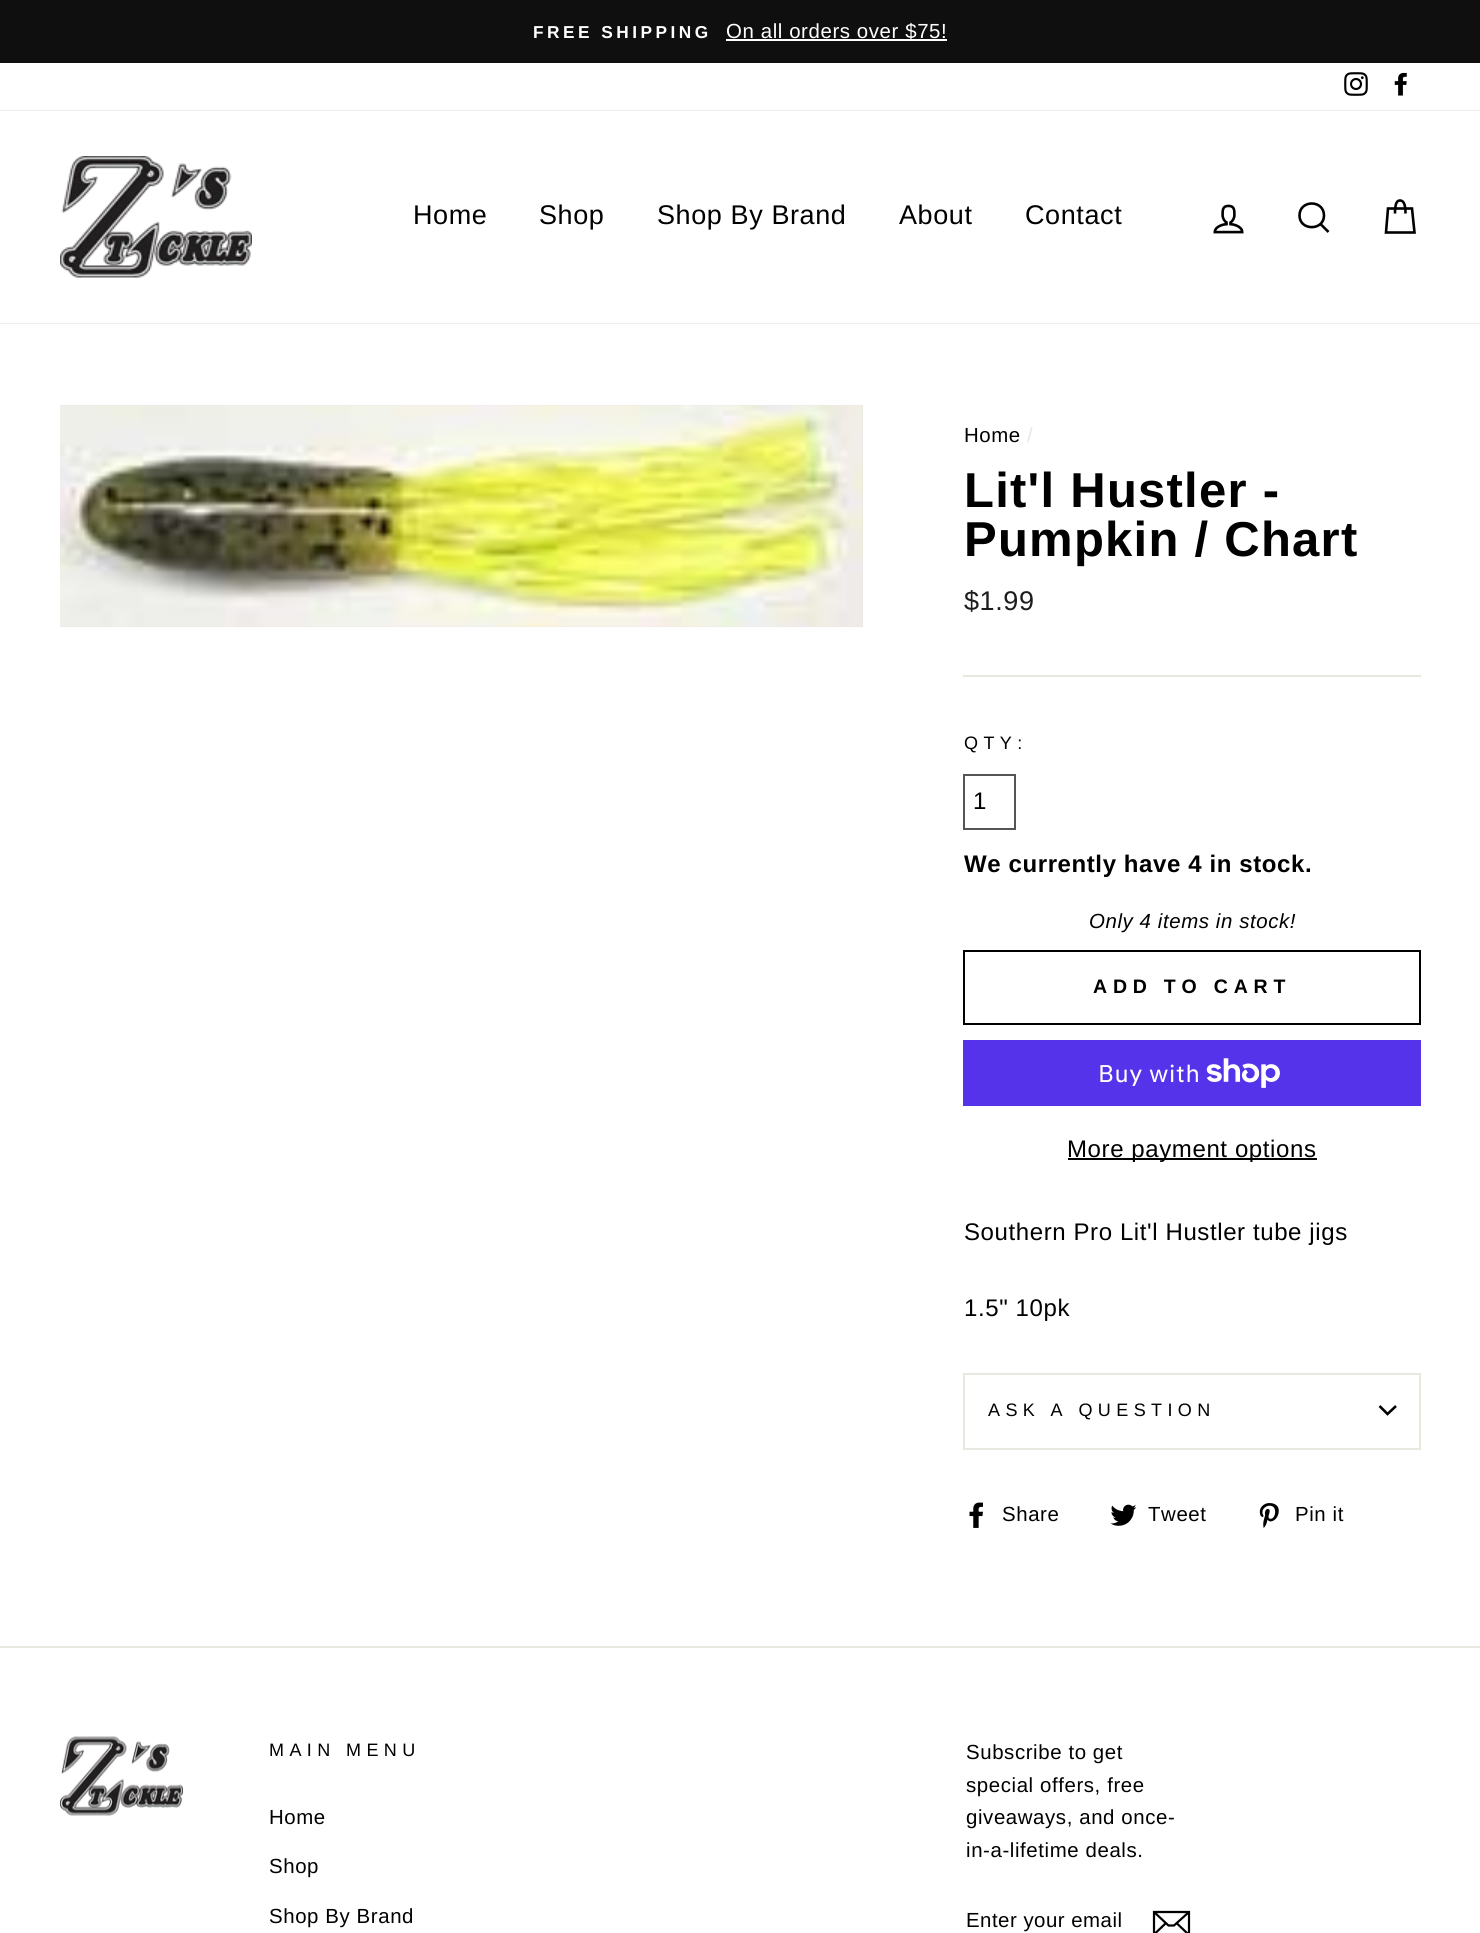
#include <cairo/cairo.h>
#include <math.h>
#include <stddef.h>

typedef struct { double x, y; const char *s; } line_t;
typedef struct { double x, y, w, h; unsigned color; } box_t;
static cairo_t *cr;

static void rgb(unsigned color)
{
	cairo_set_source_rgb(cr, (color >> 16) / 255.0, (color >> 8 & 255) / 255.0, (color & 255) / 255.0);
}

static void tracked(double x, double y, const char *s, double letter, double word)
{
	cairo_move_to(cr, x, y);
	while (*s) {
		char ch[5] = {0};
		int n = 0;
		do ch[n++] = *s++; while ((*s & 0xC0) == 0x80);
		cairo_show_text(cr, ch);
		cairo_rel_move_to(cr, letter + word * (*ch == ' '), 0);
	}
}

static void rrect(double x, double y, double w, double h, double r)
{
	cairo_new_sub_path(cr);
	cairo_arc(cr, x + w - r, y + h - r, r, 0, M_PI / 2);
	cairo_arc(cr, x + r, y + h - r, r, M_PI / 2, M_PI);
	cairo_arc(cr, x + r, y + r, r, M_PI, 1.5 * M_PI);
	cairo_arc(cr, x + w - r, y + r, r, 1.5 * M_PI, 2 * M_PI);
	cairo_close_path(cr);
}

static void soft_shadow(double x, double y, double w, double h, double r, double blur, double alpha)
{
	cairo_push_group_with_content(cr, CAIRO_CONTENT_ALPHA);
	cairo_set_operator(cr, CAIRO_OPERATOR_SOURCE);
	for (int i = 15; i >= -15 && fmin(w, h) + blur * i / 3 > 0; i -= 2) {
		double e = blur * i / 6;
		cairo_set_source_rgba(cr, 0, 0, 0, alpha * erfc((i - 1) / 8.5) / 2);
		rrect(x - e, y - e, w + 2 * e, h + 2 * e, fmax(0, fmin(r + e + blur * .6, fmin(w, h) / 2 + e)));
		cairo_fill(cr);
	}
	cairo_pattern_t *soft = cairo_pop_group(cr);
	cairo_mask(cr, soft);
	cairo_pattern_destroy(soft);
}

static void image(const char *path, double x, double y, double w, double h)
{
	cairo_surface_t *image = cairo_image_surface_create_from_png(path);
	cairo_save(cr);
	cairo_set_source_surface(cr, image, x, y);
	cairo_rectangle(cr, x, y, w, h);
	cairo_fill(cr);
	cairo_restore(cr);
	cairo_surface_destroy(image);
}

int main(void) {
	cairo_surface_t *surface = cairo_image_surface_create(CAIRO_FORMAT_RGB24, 1480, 1933);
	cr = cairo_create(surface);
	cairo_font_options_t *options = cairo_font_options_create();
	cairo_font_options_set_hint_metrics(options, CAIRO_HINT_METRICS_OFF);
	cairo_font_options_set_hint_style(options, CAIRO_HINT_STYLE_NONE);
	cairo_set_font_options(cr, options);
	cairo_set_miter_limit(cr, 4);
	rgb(0xffffff);
	cairo_paint(cr);
	rgb(0x0f0f0f);
	cairo_rectangle(cr, 0, 0, 1480, 63);
	cairo_fill(cr);
	rgb(0xffffff);
	cairo_rectangle(cr, 726, 39, 221, 2);
	cairo_fill(cr);
	image("img/1.png", 1344, 72, 24, 24);
	image("img/2.png", 1394, 72, 13, 24);
	rgb(0x000000);
	soft_shadow(0, 111, 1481, 212, 0, 1, 0.2);
	rgb(0xffffff);
	cairo_rectangle(cr, 0, 111, 1480, 212);
	cairo_fill(cr);
	image("img/3.png", 60, 156, 192, 122);
	image("img/4.png", 1213, 204, 31, 30);
	cairo_new_path(cr);
	cairo_move_to(cr, 1324, 215.5);
	cairo_curve_to(cr, 1324, 231, 1299.5, 231, 1299.5, 215.5);
	cairo_curve_to(cr, 1299.5, 199.5, 1324, 199.5, 1324, 215.5);
	cairo_close_path(cr);
	cairo_move_to(cr, 1328.5, 232);
	cairo_line_to(cr, 1320.5, 224);
	rgb(0x000000);
	cairo_set_line_width(cr, 2.6);
	cairo_stroke(cr);
	cairo_new_path(cr);
	cairo_move_to(cr, 1395, 213.5);
	cairo_curve_to(cr, 1395, 203, 1397, 200.5, 1400, 200.5);
	cairo_curve_to(cr, 1403, 200.5, 1405.5, 203, 1405.5, 213.5);
	cairo_move_to(cr, 1388, 208.5);
	cairo_line_to(cr, 1412, 208.5);
	cairo_line_to(cr, 1414.5, 232.5);
	cairo_line_to(cr, 1386, 232.5);
	cairo_close_path(cr);
	cairo_stroke(cr);
	rgb(0xe5e5e5);
	cairo_rectangle(cr, 60, 405, 803, 222);
	cairo_fill(cr);
	image("img/5.png", 60, 405, 803, 222);
	rgb(0xe8e8e1);
	cairo_rectangle(cr, 963, 675, 458, 2);
	cairo_fill(cr);
	cairo_rectangle(cr, 964, 775, 51, 54);
	rgb(0x555555);
	cairo_set_line_width(cr, 2);
	cairo_stroke(cr);
	cairo_rectangle(cr, 964, 951, 456, 73);
	rgb(0x000000);
	cairo_stroke(cr);
	rgb(0x5433eb);
	cairo_rectangle(cr, 963, 1040, 458, 66);
	cairo_fill(cr);
	image("img/6.png", 1206, 1058, 74, 30);
	{
		static const box_t items[] = {
			{1068, 1158, 249, 2, 0x000000},
			{963, 1448, 458, 2, 0xe8e8e1},
			{963, 1373, 458, 2, 0xe8e8e1},
			{1419, 1373, 2, 75, 0xe8e8e1},
			{963, 1373, 2, 75, 0xe8e8e1},
		};
		for (size_t i = 0; i < sizeof items / sizeof *items; i++) {
			rgb(items[i].color);
			cairo_rectangle(cr, items[i].x, items[i].y, items[i].w, items[i].h);
			cairo_fill(cr);
		}
	}
	cairo_new_path(cr);
	cairo_move_to(cr, 1379.5, 1406);
	cairo_line_to(cr, 1387.5, 1414);
	cairo_line_to(cr, 1396, 1406);
	rgb(0x000000);
	cairo_set_line_width(cr, 2.6);
	cairo_stroke(cr);
	image("img/7.png", 969, 1502, 14, 26);
	image("img/8.png", 1110, 1504, 27, 22);
	image("img/9.png", 1259, 1503, 20, 25);
	rgb(0xe8e8e1);
	cairo_rectangle(cr, 0, 1646, 1480, 2);
	cairo_fill(cr);
	image("img/10.png", 60, 1736, 123, 80);
	cairo_new_path(cr);
	cairo_move_to(cr, 1189, 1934.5);
	cairo_line_to(cr, 1154, 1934.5);
	cairo_line_to(cr, 1154, 1912);
	cairo_line_to(cr, 1189, 1912);
	cairo_close_path(cr);
	cairo_move_to(cr, 1154, 1912);
	cairo_line_to(cr, 1168.5, 1925.5);
	cairo_line_to(cr, 1174, 1925.5);
	cairo_line_to(cr, 1189, 1912);
	cairo_move_to(cr, 1166, 1923);
	cairo_line_to(cr, 1154.5, 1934);
	cairo_move_to(cr, 1188.5, 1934.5);
	cairo_line_to(cr, 1176.5, 1923);
	rgb(0x000000);
	cairo_set_line_width(cr, 2.2);
	cairo_stroke(cr);
	cairo_select_font_face(cr, "Arimo", CAIRO_FONT_SLANT_NORMAL, CAIRO_FONT_WEIGHT_BOLD);
	cairo_set_font_size(cr, 17.25);
	rgb(0xffffff);
	tracked(533, 38, "FREE SHIPPING", 3.5, 0);
	cairo_select_font_face(cr, "Arimo", CAIRO_FONT_SLANT_NORMAL, CAIRO_FONT_WEIGHT_NORMAL);
	cairo_set_font_size(cr, 20.4);
	tracked(726, 38, "On all orders over $75!", 0.6, 0);
	cairo_set_font_size(cr, 27);
	rgb(0x000000);
	{
		static const line_t items[] = {
			{413, 224, "Home"},
			{539, 224, "Shop"},
			{657, 224, "Shop By Brand"},
			{899, 224, "About"},
			{1025, 224, "Contact"},
		};
		for (size_t i = 0; i < sizeof items / sizeof *items; i++) {
			tracked(items[i].x, items[i].y, items[i].s, 0.6, 0);
		}
	}
	cairo_set_font_size(cr, 20.4);
	tracked(964, 442, "Home", 0.6, 0);
	rgb(0xe8e8e1);
	tracked(1027, 442, "/", 0.6, 0);
	cairo_select_font_face(cr, "Arimo", CAIRO_FONT_SLANT_NORMAL, CAIRO_FONT_WEIGHT_BOLD);
	cairo_set_font_size(cr, 49);
	rgb(0x000000);
	tracked(964, 507, "Lit'l Hustler -", 1.25, 0);
	tracked(964, 556, "Pumpkin / Chart", 1.25, 0);
	cairo_select_font_face(cr, "Arimo", CAIRO_FONT_SLANT_NORMAL, CAIRO_FONT_WEIGHT_NORMAL);
	cairo_set_font_size(cr, 27);
	rgb(0x1c1d1d);
	tracked(964, 610, "$1.99", 0.6, 0);
	cairo_set_font_size(cr, 18);
	rgb(0x000000);
	tracked(964, 749, "QTY:", 5.4, 0);
	cairo_set_font_size(cr, 24);
	tracked(973, 809, "1", 0.6, 0);
	cairo_select_font_face(cr, "Arimo", CAIRO_FONT_SLANT_NORMAL, CAIRO_FONT_WEIGHT_BOLD);
	tracked(964, 872, "We currently have 4 in stock.", 0.6, 0);
	cairo_select_font_face(cr, "Arimo", CAIRO_FONT_SLANT_ITALIC, CAIRO_FONT_WEIGHT_NORMAL);
	cairo_set_font_size(cr, 20.4);
	tracked(1089, 928, "Only 4 items in stock!", 0.6, 0);
	cairo_select_font_face(cr, "Arimo", CAIRO_FONT_SLANT_NORMAL, CAIRO_FONT_WEIGHT_BOLD);
	cairo_set_font_size(cr, 19.5);
	tracked(1093, 993, "ADD TO CART", 5.8, 0);
	cairo_select_font_face(cr, "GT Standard", CAIRO_FONT_SLANT_NORMAL, CAIRO_FONT_WEIGHT_NORMAL);
	cairo_set_font_size(cr, 24);
	rgb(0xffffff);
	tracked(1098, 1082, "Buy with", 0.6, 0);
	cairo_select_font_face(cr, "Arimo", CAIRO_FONT_SLANT_NORMAL, CAIRO_FONT_WEIGHT_NORMAL);
	rgb(0x000000);
	{
		static const line_t items[] = {
			{1067, 1157, "More payment options"},
			{964, 1240, "Southern Pro Lit'l Hustler tube jigs"},
			{964, 1316, "1.5\" 10pk"},
		};
		for (size_t i = 0; i < sizeof items / sizeof *items; i++) {
			tracked(items[i].x, items[i].y, items[i].s, 0.6, 0);
		}
	}
	cairo_set_font_size(cr, 18);
	tracked(988, 1416, "ASK A QUESTION", 5.4, 0);
	cairo_set_font_size(cr, 20.4);
	{
		static const line_t items[] = {
			{1002, 1521, "Share"},
			{1148, 1521, "Tweet"},
			{1295, 1521, "Pin it"},
		};
		for (size_t i = 0; i < sizeof items / sizeof *items; i++) {
			tracked(items[i].x, items[i].y, items[i].s, 0.6, 0);
		}
	}
	cairo_set_font_size(cr, 18);
	tracked(269, 1756, "MAIN MENU", 5.4, 0);
	cairo_set_font_size(cr, 20.4);
	{
		static const line_t items[] = {
			{269, 1824, "Home"},
			{269, 1873, "Shop"},
			{269, 1923, "Shop By Brand"},
			{966, 1759, "Subscribe to get"},
			{966, 1792, "special offers, free"},
			{966, 1824, "giveaways, and once-"},
			{966, 1857, "in-a-lifetime deals."},
		};
		for (size_t i = 0; i < sizeof items / sizeof *items; i++) {
			tracked(items[i].x, items[i].y, items[i].s, 0.6, 0);
		}
	}
	tracked(966, 1927, "Enter your email", 0.5, 0);
	cairo_surface_write_to_png(surface, "page.png");
	cairo_font_options_destroy(options);
	cairo_destroy(cr);
	cairo_surface_destroy(surface);
	return 0;
}
